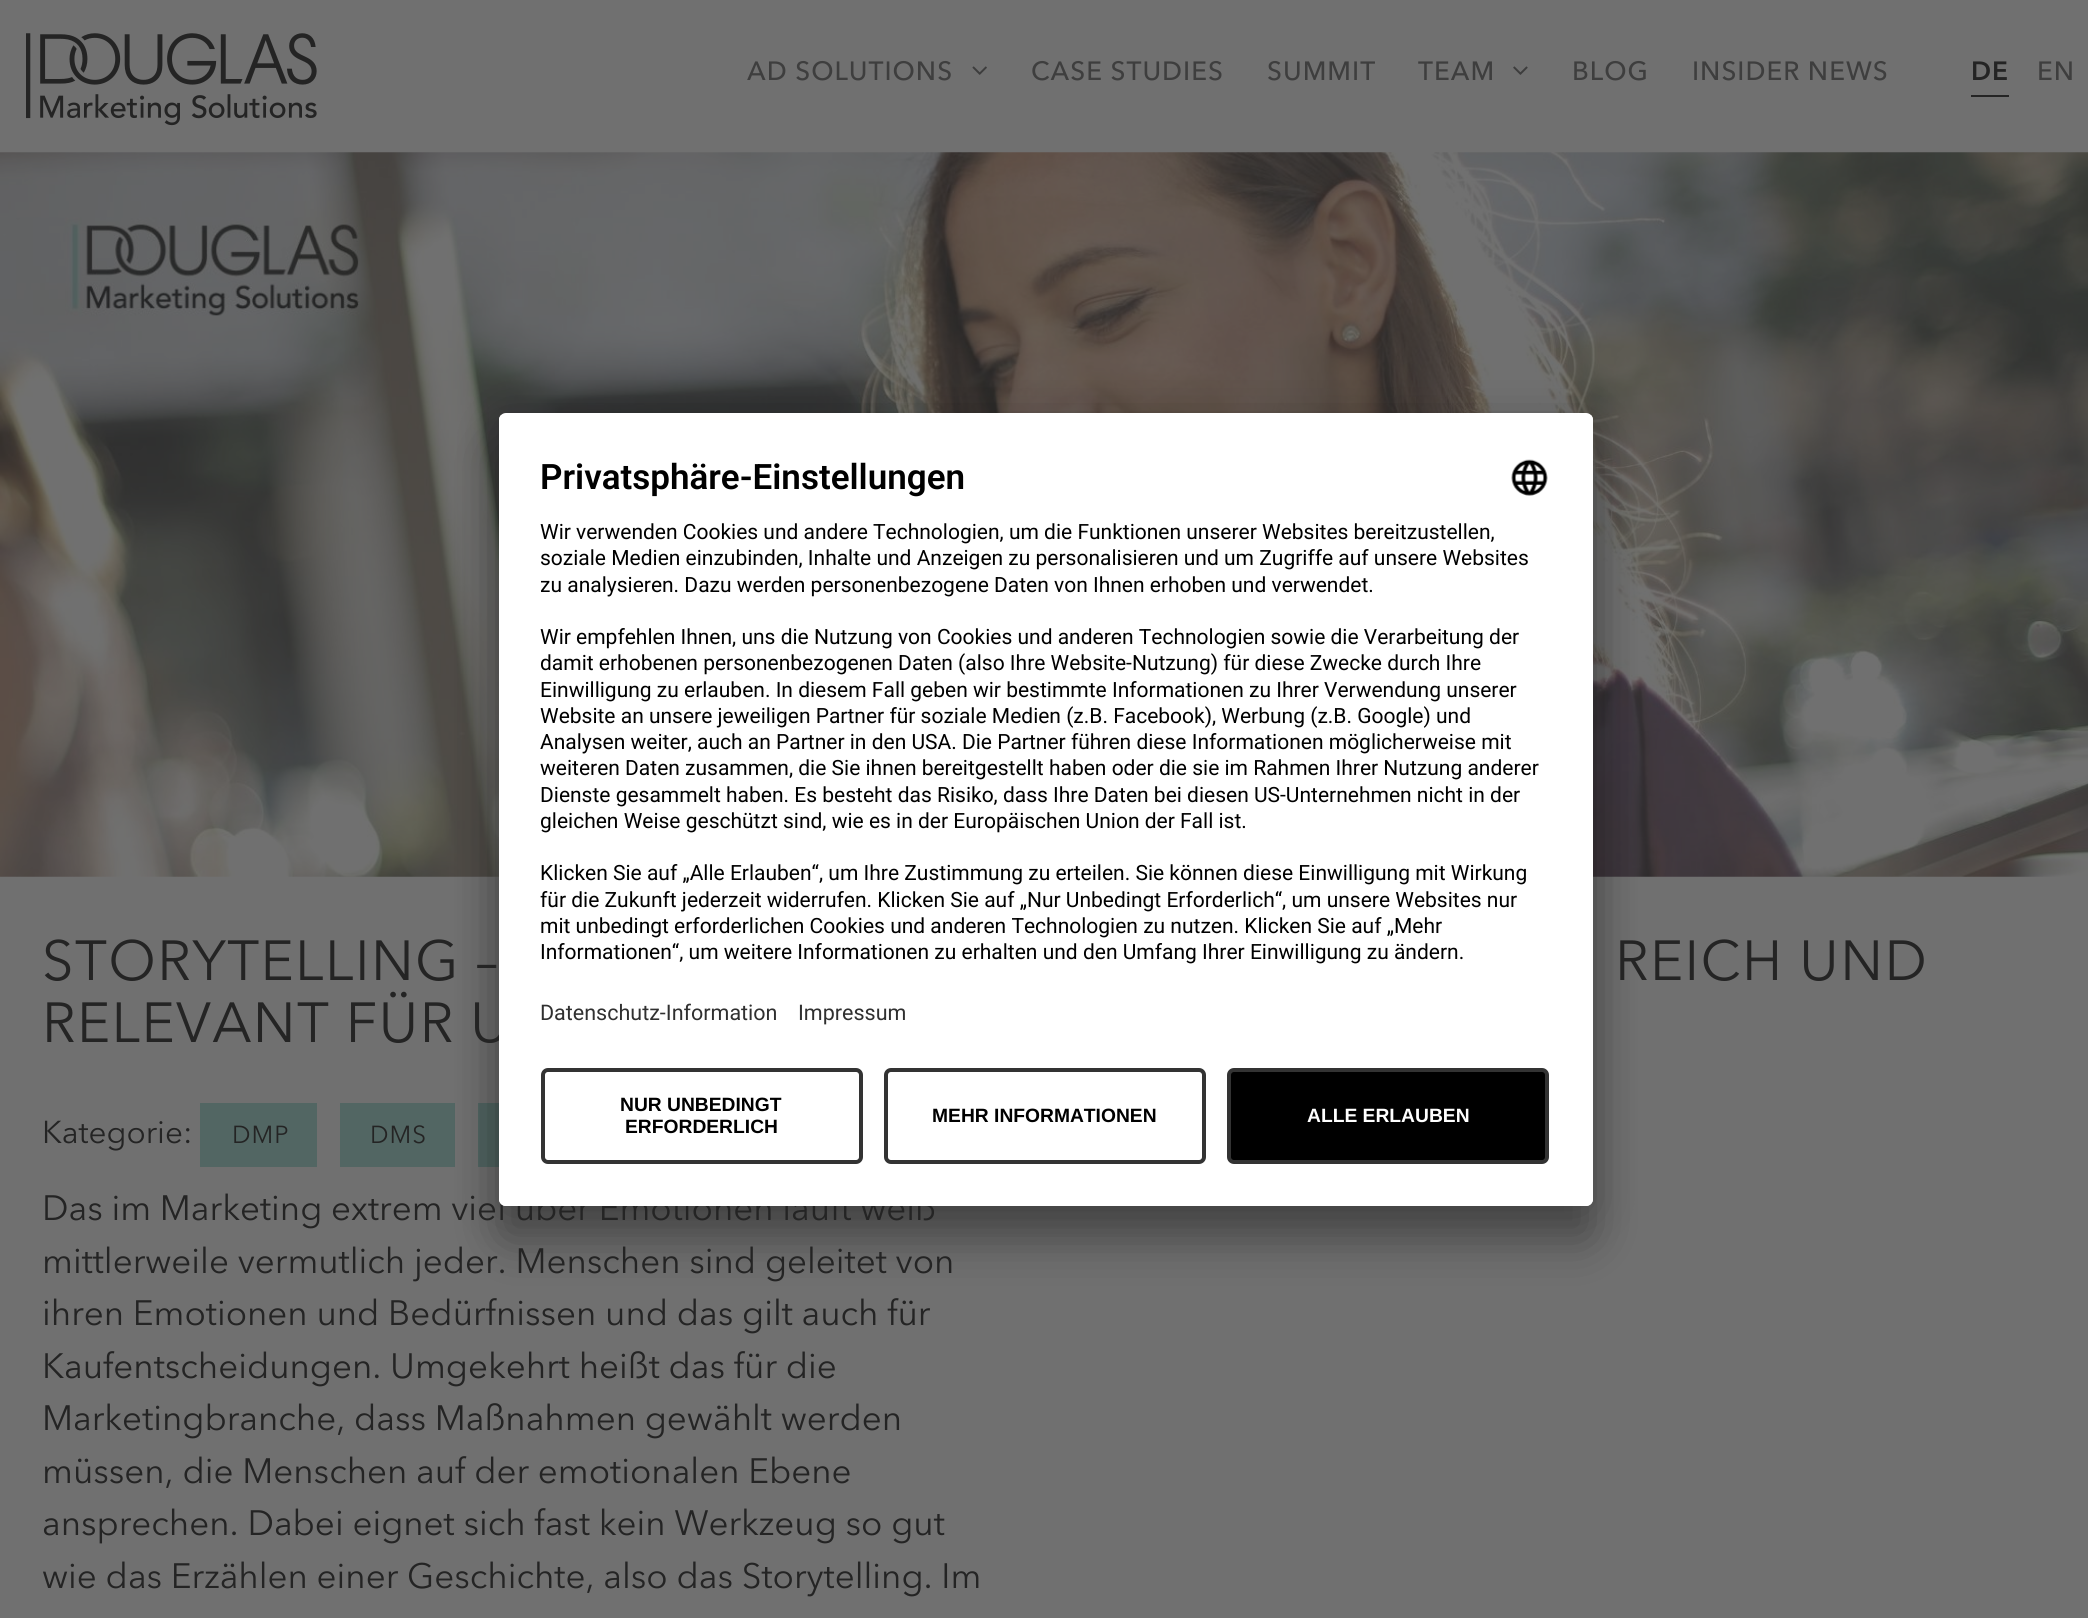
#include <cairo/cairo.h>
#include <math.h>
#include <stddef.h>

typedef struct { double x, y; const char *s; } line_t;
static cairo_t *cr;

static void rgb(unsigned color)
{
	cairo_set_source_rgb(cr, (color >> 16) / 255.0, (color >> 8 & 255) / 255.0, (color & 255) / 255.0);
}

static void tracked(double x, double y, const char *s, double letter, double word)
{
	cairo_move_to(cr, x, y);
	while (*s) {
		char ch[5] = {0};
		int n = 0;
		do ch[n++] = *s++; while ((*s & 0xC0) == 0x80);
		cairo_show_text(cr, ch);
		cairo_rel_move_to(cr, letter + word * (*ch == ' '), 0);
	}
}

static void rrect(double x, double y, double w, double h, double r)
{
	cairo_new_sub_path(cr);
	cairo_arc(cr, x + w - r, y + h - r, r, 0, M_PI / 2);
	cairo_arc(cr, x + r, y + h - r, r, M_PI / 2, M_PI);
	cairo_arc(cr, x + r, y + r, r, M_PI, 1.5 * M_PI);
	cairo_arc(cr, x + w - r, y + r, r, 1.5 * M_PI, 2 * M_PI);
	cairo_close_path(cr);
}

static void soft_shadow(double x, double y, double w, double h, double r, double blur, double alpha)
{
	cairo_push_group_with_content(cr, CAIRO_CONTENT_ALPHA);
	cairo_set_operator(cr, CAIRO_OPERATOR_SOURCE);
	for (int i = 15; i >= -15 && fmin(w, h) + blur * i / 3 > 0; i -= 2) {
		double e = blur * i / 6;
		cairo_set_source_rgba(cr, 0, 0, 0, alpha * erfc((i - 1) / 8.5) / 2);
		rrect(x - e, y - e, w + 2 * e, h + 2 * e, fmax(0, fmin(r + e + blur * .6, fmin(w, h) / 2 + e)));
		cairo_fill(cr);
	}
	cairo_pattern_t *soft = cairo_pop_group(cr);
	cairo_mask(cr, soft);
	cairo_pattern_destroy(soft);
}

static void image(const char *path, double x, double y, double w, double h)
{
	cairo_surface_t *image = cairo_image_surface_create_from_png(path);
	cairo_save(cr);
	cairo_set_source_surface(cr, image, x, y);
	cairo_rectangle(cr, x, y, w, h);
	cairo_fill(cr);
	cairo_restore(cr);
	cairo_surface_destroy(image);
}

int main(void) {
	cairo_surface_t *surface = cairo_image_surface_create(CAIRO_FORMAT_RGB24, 2088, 1618);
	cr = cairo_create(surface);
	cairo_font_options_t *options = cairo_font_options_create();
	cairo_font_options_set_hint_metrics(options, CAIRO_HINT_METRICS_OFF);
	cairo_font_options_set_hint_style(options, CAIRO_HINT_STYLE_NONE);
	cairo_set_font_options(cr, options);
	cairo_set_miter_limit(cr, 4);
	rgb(0x707070);
	cairo_paint(cr);
	image("img/1.png", 26, 33, 291, 93);
	image("img/2.png", 972, 66, 15, 9);
	image("img/3.png", 1513, 66, 15, 9);
	rgb(0x242424);
	cairo_rectangle(cr, 1971, 95, 38, 2);
	cairo_fill(cr);
	image("img/5.png", 0, 152, 2088, 725);
	rgb(0x526663);
	cairo_rectangle(cr, 340, 1103, 115, 64);
	cairo_fill(cr);
	cairo_rectangle(cr, 478, 1103, 21, 64);
	cairo_fill(cr);
	rgb(0x000000);
	soft_shadow(499, 448, 1094, 793, 7, 24.5, 0.3);
	soft_shadow(499, 422, 1094, 793, 7, 23, 0.22);
	rgb(0x526663);
	cairo_rectangle(cr, 200, 1103, 117, 64);
	cairo_fill(cr);
	cairo_select_font_face(cr, "Avenir Next Medium", CAIRO_FONT_SLANT_NORMAL, CAIRO_FONT_WEIGHT_NORMAL);
	cairo_set_font_size(cr, 26.25);
	rgb(0x3e3e3e);
	{
		static const line_t items[] = {
			{747, 80, "AD SOLUTIONS"},
			{1031, 80, "CASE STUDIES"},
			{1267, 80, "SUMMIT"},
			{1418, 80, "TEAM"},
			{1572, 80, "BLOG"},
			{1692, 80, "INSIDER NEWS"},
		};
		for (size_t i = 0; i < sizeof items / sizeof *items; i++) {
			tracked(items[i].x, items[i].y, items[i].s, 1, 0);
		}
	}
	cairo_select_font_face(cr, "Avenir Next SemiBold", CAIRO_FONT_SLANT_NORMAL, CAIRO_FONT_WEIGHT_NORMAL);
	rgb(0x242424);
	tracked(1971, 80, "DE", 1, 0);
	cairo_select_font_face(cr, "Avenir Next Medium", CAIRO_FONT_SLANT_NORMAL, CAIRO_FONT_WEIGHT_NORMAL);
	rgb(0x3e3e3e);
	tracked(2037, 80, "EN", 1, 0);
	cairo_select_font_face(cr, "Avenir Next", CAIRO_FONT_SLANT_NORMAL, CAIRO_FONT_WEIGHT_NORMAL);
	cairo_set_font_size(cr, 56);
	rgb(0x242424);
	{
		static const line_t items[] = {
			{42, 980, "STORYTELLING –"},
			{1615, 980, "REICH UND"},
			{42, 1042, "RELEVANT FÜR U"},
		};
		for (size_t i = 0; i < sizeof items / sizeof *items; i++) {
			tracked(items[i].x, items[i].y, items[i].s, 1.4, 0);
		}
	}
	cairo_set_font_size(cr, 31.5);
	cairo_move_to(cr, 42, 1143);
	cairo_show_text(cr, "Kategorie:");
	cairo_set_font_size(cr, 24.5);
	tracked(232, 1143, "DMP", 1, 0);
	tracked(370, 1143, "DMS", 1, 0);
	cairo_set_font_size(cr, 35);
	cairo_move_to(cr, 42, 1220);
	cairo_show_text(cr, "Das im Marketing extrem viel über Emotionen läuft weiß");
	rgb(0xffffff);
	rrect(499, 413, 1094, 793, 7);
	cairo_fill(cr);
	cairo_save(cr);
	rrect(499, 413, 1094, 793, 7);
	cairo_clip(cr);
	cairo_new_path(cr);
	cairo_move_to(cr, 506, 413);
	cairo_line_to(cr, 1586, 413);
	cairo_curve_to(cr, 1590, 413, 1593, 416, 1593, 420);
	cairo_line_to(cr, 1593, 1054);
	cairo_line_to(cr, 499, 1054);
	cairo_line_to(cr, 499, 420);
	cairo_curve_to(cr, 499, 416, 502, 413, 506, 413);
	cairo_close_path(cr);
	cairo_clip(cr);
	cairo_rectangle(cr, 499, 415, 1094, 639);
	cairo_fill(cr);
	cairo_restore(cr);
	image("img/4.png", 1511, 459, 37, 37);
	cairo_select_font_face(cr, "Roboto", CAIRO_FONT_SLANT_NORMAL, CAIRO_FONT_WEIGHT_NORMAL);
	cairo_set_font_size(cr, 21.5);
	rgb(0x303030);
	cairo_move_to(cr, 798, 1020);
	cairo_show_text(cr, "Impressum");
	cairo_move_to(cr, 540, 1020);
	cairo_show_text(cr, "Datenschutz-Information");
	cairo_select_font_face(cr, "Roboto SemiBold", CAIRO_FONT_SLANT_NORMAL, CAIRO_FONT_WEIGHT_NORMAL);
	cairo_set_font_size(cr, 35);
	rgb(0x000000);
	cairo_move_to(cr, 540, 489);
	cairo_show_text(cr, "Privatsphäre-Einstellungen");
	cairo_select_font_face(cr, "Roboto", CAIRO_FONT_SLANT_NORMAL, CAIRO_FONT_WEIGHT_NORMAL);
	cairo_set_font_size(cr, 21);
	{
		static const line_t items[] = {
			{540, 959, "Informationen“, um weitere Informationen zu erhalten und den Umfang Ihrer Einwilligung zu ändern."},
			{540, 933, "mit unbedingt erforderlichen Cookies und anderen Technologien zu nutzen. Klicken Sie auf „Mehr"},
			{540, 907, "für die Zukunft jederzeit widerrufen. Klicken Sie auf „Nur Unbedingt Erforderlich“, um unsere Websites nur"},
			{540, 880, "Klicken Sie auf „Alle Erlauben“, um Ihre Zustimmung zu erteilen. Sie können diese Einwilligung mit Wirkung"},
		};
		for (size_t i = 0; i < sizeof items / sizeof *items; i++) {
			cairo_move_to(cr, items[i].x, items[i].y);
			cairo_show_text(cr, items[i].s);
		}
	}
	cairo_save(cr);
	cairo_rectangle(cr, 541, 513, 1010, 460);
	cairo_clip(cr);
	cairo_move_to(cr, 540, 828);
	cairo_show_text(cr, "gleichen Weise geschützt sind, wie es in der Europäischen Union der Fall ist.");
	cairo_restore(cr);
	{
		static const line_t items[] = {
			{540, 802, "Dienste gesammelt haben. Es besteht das Risiko, dass Ihre Daten bei diesen US-Unternehmen nicht in der"},
			{540, 775, "weiteren Daten zusammen, die Sie ihnen bereitgestellt haben oder die sie im Rahmen Ihrer Nutzung anderer"},
			{540, 749, "Analysen weiter, auch an Partner in den USA. Die Partner führen diese Informationen möglicherweise mit"},
			{540, 723, "Website an unsere jeweiligen Partner für soziale Medien (z.B. Facebook), Werbung (z.B. Google) und"},
			{540, 697, "Einwilligung zu erlauben. In diesem Fall geben wir bestimmte Informationen zu Ihrer Verwendung unserer"},
		};
		for (size_t i = 0; i < sizeof items / sizeof *items; i++) {
			cairo_move_to(cr, items[i].x, items[i].y);
			cairo_show_text(cr, items[i].s);
		}
	}
	cairo_save(cr);
	cairo_rectangle(cr, 541, 513, 1010, 460);
	cairo_clip(cr);
	cairo_move_to(cr, 540, 670);
	cairo_show_text(cr, "damit erhobenen personenbezogenen Daten (also Ihre Website-Nutzung) für diese Zwecke durch Ihre");
	cairo_restore(cr);
	cairo_move_to(cr, 540, 644);
	cairo_show_text(cr, "Wir empfehlen Ihnen, uns die Nutzung von Cookies und anderen Technologien sowie die Verarbeitung der");
	cairo_save(cr);
	cairo_rectangle(cr, 541, 513, 1010, 460);
	cairo_clip(cr);
	cairo_move_to(cr, 540, 592);
	cairo_show_text(cr, "zu analysieren. Dazu werden personenbezogene Daten von Ihnen erhoben und verwendet.");
	cairo_restore(cr);
	cairo_move_to(cr, 540, 565);
	cairo_show_text(cr, "soziale Medien einzubinden, Inhalte und Anzeigen zu personalisieren und um Zugriffe auf unsere Websites");
	cairo_move_to(cr, 540, 539);
	cairo_show_text(cr, "Wir verwenden Cookies und andere Technologien, um die Funktionen unserer Websites bereitzustellen,");
	rgb(0xffffff);
	cairo_new_path(cr);
	cairo_move_to(cr, 499, 1054);
	cairo_line_to(cr, 1593, 1054);
	cairo_line_to(cr, 1593, 1199);
	cairo_curve_to(cr, 1593, 1203, 1590, 1206, 1586, 1206);
	cairo_line_to(cr, 506, 1206);
	cairo_curve_to(cr, 502, 1206, 499, 1203, 499, 1199);
	cairo_close_path(cr);
	cairo_fill(cr);
	rgb(0x000000);
	rrect(1229, 1070, 318, 92, 5);
	cairo_fill_preserve(cr);
	rgb(0x333333);
	cairo_set_line_width(cr, 4);
	cairo_stroke(cr);
	cairo_select_font_face(cr, "Liberation Sans", CAIRO_FONT_SLANT_NORMAL, CAIRO_FONT_WEIGHT_BOLD);
	cairo_set_font_size(cr, 19.25);
	rgb(0xffffff);
	cairo_move_to(cr, 1307, 1122);
	cairo_show_text(cr, "ALLE ERLAUBEN");
	rrect(543, 1070, 318, 92, 5);
	rgb(0x333333);
	cairo_stroke(cr);
	rgb(0x000000);
	cairo_move_to(cr, 625, 1133);
	cairo_show_text(cr, "ERFORDERLICH");
	cairo_move_to(cr, 620, 1111);
	cairo_show_text(cr, "NUR UNBEDINGT");
	rrect(886, 1070, 318, 92, 5);
	rgb(0x333333);
	cairo_stroke(cr);
	rgb(0x000000);
	cairo_move_to(cr, 932, 1122);
	cairo_show_text(cr, "MEHR INFORMATIONEN");
	cairo_select_font_face(cr, "Avenir Next", CAIRO_FONT_SLANT_NORMAL, CAIRO_FONT_WEIGHT_NORMAL);
	cairo_set_font_size(cr, 35);
	rgb(0x242424);
	{
		static const line_t items[] = {
			{42, 1273, "mittlerweile vermutlich jeder. Menschen sind geleitet von"},
			{42, 1325, "ihren Emotionen und Bedürfnissen und das gilt auch für"},
			{42, 1378, "Kaufentscheidungen. Umgekehrt heißt das für die"},
			{42, 1430, "Marketingbranche, dass Maßnahmen gewählt werden"},
			{42, 1483, "müssen, die Menschen auf der emotionalen Ebene"},
			{42, 1535, "ansprechen. Dabei eignet sich fast kein Werkzeug so gut"},
			{42, 1588, "wie das Erzählen einer Geschichte, also das Storytelling. Im"},
		};
		for (size_t i = 0; i < sizeof items / sizeof *items; i++) {
			cairo_move_to(cr, items[i].x, items[i].y);
			cairo_show_text(cr, items[i].s);
		}
	}
	cairo_surface_write_to_png(surface, "page.png");
	cairo_font_options_destroy(options);
	cairo_destroy(cr);
	cairo_surface_destroy(surface);
	return 0;
}
